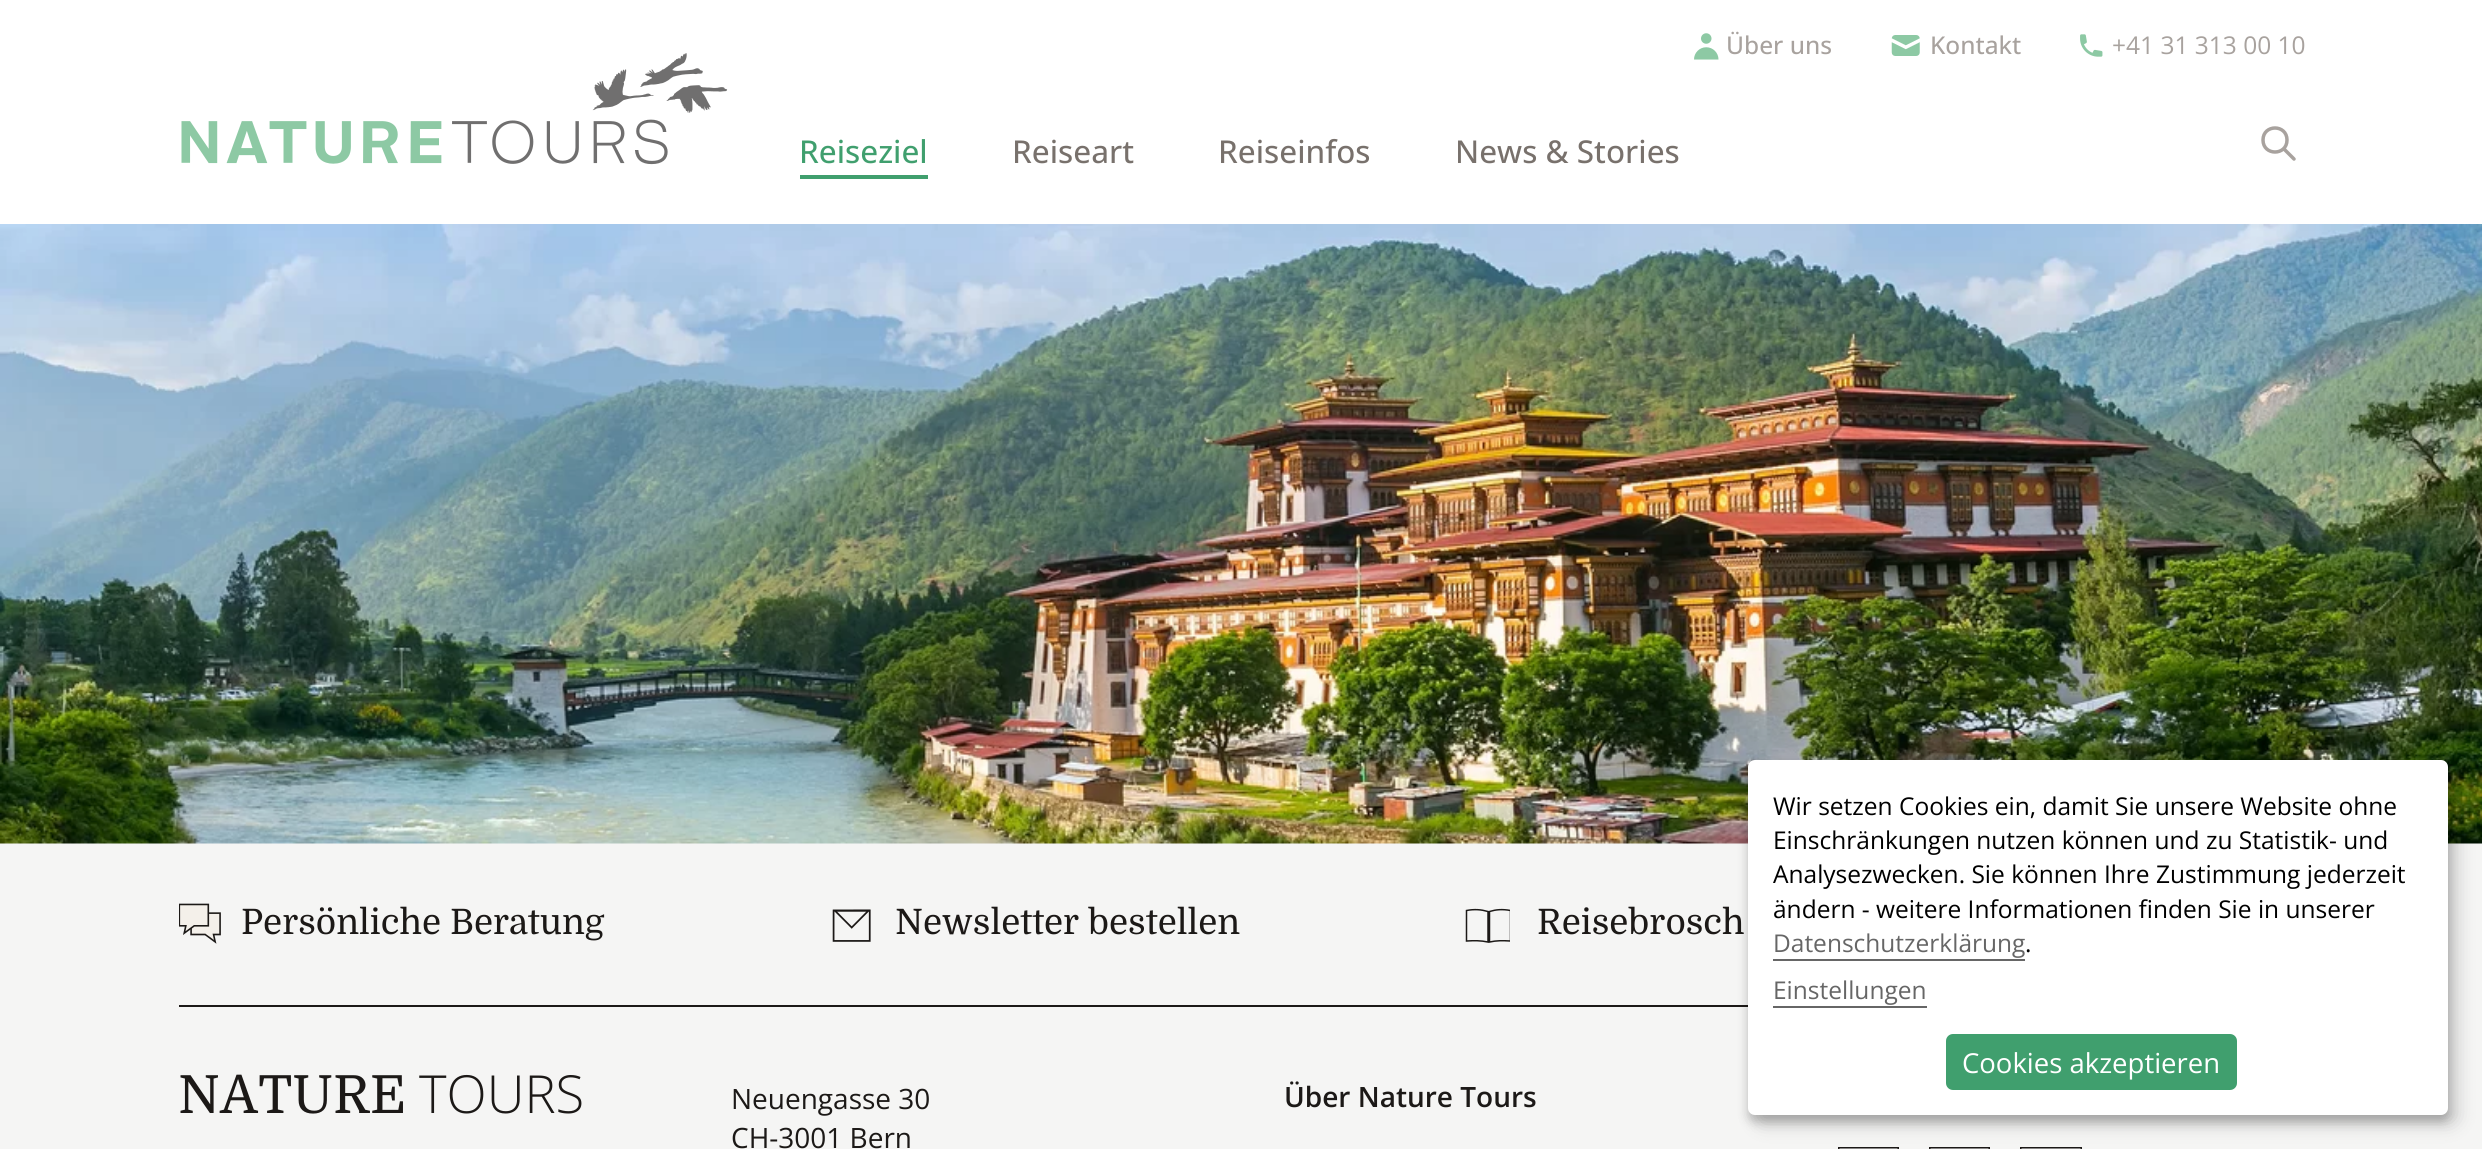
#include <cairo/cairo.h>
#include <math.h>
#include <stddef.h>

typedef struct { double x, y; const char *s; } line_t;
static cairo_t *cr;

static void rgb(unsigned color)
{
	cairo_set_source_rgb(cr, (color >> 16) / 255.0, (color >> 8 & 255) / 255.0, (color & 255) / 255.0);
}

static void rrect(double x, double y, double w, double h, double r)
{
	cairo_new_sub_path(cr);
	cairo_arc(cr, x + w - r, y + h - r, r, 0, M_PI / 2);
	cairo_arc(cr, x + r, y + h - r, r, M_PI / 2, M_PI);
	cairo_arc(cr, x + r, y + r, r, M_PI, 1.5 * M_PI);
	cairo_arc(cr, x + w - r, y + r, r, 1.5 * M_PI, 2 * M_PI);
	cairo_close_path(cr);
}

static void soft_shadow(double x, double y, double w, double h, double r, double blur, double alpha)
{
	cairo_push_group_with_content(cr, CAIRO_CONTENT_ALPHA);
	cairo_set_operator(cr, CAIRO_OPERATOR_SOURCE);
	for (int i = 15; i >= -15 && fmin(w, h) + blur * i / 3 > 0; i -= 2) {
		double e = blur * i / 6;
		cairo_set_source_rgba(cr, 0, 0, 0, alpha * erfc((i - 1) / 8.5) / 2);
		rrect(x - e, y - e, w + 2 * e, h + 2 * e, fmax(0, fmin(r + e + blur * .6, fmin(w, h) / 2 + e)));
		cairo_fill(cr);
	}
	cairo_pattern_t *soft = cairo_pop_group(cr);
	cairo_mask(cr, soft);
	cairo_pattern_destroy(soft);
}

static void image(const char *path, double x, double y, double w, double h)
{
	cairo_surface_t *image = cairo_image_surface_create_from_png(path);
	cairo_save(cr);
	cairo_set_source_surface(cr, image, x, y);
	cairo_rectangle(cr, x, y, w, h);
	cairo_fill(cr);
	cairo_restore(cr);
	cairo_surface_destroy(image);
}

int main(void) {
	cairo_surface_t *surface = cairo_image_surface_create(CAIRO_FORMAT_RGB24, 2482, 1149);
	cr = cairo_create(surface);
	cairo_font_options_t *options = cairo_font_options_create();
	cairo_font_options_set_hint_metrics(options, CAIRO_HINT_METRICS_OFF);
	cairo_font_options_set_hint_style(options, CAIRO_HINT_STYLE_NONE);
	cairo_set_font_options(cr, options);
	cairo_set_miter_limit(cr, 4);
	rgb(0xffffff);
	cairo_paint(cr);
	image("img/1.png", 1694, 33, 25, 27);
	image("img/2.png", 1891, 35, 29, 21);
	image("img/3.png", 2080, 34, 23, 23);
	image("img/4.png", 181, 53, 547, 112);
	rgb(0x409f6e);
	cairo_rectangle(cr, 800, 175, 128, 4);
	cairo_fill(cr);
	cairo_new_path(cr);
	cairo_move_to(cr, 2294, 159);
	cairo_line_to(cr, 2284, 149);
	cairo_move_to(cr, 2287, 140);
	cairo_curve_to(cr, 2287, 156, 2263, 156, 2263, 140);
	cairo_curve_to(cr, 2263, 124, 2287, 124, 2287, 140);
	cairo_close_path(cr);
	rgb(0xa8a29e);
	cairo_set_line_width(cr, 3.5);
	cairo_set_line_cap(cr, CAIRO_LINE_CAP_ROUND);
	cairo_set_line_join(cr, CAIRO_LINE_JOIN_ROUND);
	cairo_stroke(cr);
	rgb(0xf5f5f4);
	cairo_rectangle(cr, 0, 843, 2482, 306);
	cairo_fill(cr);
	image("img/5.png", 0, 224, 2482, 620);
	rgb(0x1c1917);
	cairo_rectangle(cr, 179, 1005, 1569, 2);
	cairo_fill(cr);
	image("img/6.png", 179, 903, 42, 41);
	image("img/7.png", 832, 909, 39, 33);
	cairo_save(cr);
	cairo_rectangle(cr, 1465, 908, 45, 35);
	cairo_clip(cr);
	cairo_new_path(cr);
	cairo_move_to(cr, 1489.5, 911.5);
	cairo_curve_to(cr, 1496, 909.5, 1502.5, 909, 1510.5, 910.5);
	cairo_line_to(cr, 1510.5, 941);
	cairo_curve_to(cr, 1502.5, 940.5, 1496.5, 940.5, 1489.5, 942);
	cairo_close_path(cr);
	cairo_move_to(cr, 1488, 911.5);
	cairo_line_to(cr, 1488, 942);
	cairo_curve_to(cr, 1480.5, 940.5, 1474.5, 940.5, 1466.5, 941);
	cairo_line_to(cr, 1466.5, 910.5);
	cairo_curve_to(cr, 1474.5, 909, 1481, 909.5, 1488, 911.5);
	cairo_close_path(cr);
	cairo_set_line_width(cr, 1.5);
	cairo_set_line_cap(cr, CAIRO_LINE_CAP_BUTT);
	cairo_set_line_join(cr, CAIRO_LINE_JOIN_MITER);
	cairo_stroke(cr);
	cairo_restore(cr);
	cairo_rectangle(cr, 1838.75, 1147.75, 59.5, 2.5);
	cairo_set_line_width(cr, 1.5);
	cairo_set_line_cap(cr, CAIRO_LINE_CAP_BUTT);
	cairo_set_line_join(cr, CAIRO_LINE_JOIN_MITER);
	cairo_stroke(cr);
	cairo_rectangle(cr, 1929.75, 1147.75, 59.5, 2.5);
	cairo_stroke(cr);
	cairo_rectangle(cr, 2020.75, 1147.75, 60.5, 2.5);
	cairo_stroke(cr);
	rgb(0x000000);
	soft_shadow(1757, 768, 700, 356, 7, 9, 0.19);
	soft_shadow(1748, 767, 700, 355, 7, 5, 0.2);
	rgb(0xffffff);
	rrect(1748, 760, 700, 355, 7);
	cairo_fill(cr);
	rgb(0x666666);
	cairo_rectangle(cr, 1773, 959, 252, 2);
	cairo_fill(cr);
	cairo_rectangle(cr, 1773, 1006, 154, 2);
	cairo_fill(cr);
	rgb(0x409f6e);
	rrect(1946, 1034, 291, 56, 7);
	cairo_fill(cr);
	cairo_select_font_face(cr, "Open Sans Medium", CAIRO_FONT_SLANT_NORMAL, CAIRO_FONT_WEIGHT_NORMAL);
	cairo_set_font_size(cr, 24.5);
	rgb(0xa8a29e);
	cairo_move_to(cr, 1726, 54);
	cairo_show_text(cr, "Über uns");
	cairo_move_to(cr, 1930, 54);
	cairo_show_text(cr, "Kontakt");
	cairo_select_font_face(cr, "Open Sans", CAIRO_FONT_SLANT_NORMAL, CAIRO_FONT_WEIGHT_NORMAL);
	cairo_move_to(cr, 2112, 54);
	cairo_show_text(cr, "+41 31 313 00 10");
	cairo_select_font_face(cr, "Open Sans Medium", CAIRO_FONT_SLANT_NORMAL, CAIRO_FONT_WEIGHT_NORMAL);
	cairo_set_font_size(cr, 31.5);
	rgb(0x409f6e);
	cairo_move_to(cr, 799, 163);
	cairo_show_text(cr, "Reiseziel");
	rgb(0x78716c);
	{
		static const line_t items[] = {
			{1012, 163, "Reiseart"},
			{1218, 163, "Reiseinfos"},
			{1455, 163, "News & Stories"},
		};
		for (size_t i = 0; i < sizeof items / sizeof *items; i++) {
			cairo_move_to(cr, items[i].x, items[i].y);
			cairo_show_text(cr, items[i].s);
		}
	}
	cairo_select_font_face(cr, "Domine", CAIRO_FONT_SLANT_NORMAL, CAIRO_FONT_WEIGHT_NORMAL);
	cairo_set_font_size(cr, 35);
	rgb(0x1c1917);
	{
		static const line_t items[] = {
			{241, 934, "Persönliche Beratung"},
			{895, 934, "Newsletter bestellen"},
			{1537, 934, "Reisebrosch"},
		};
		for (size_t i = 0; i < sizeof items / sizeof *items; i++) {
			cairo_move_to(cr, items[i].x, items[i].y);
			cairo_show_text(cr, items[i].s);
		}
	}
	cairo_set_font_size(cr, 52.5);
	cairo_move_to(cr, 178, 1113);
	cairo_show_text(cr, "NATURE");
	cairo_select_font_face(cr, "Open Sans Light", CAIRO_FONT_SLANT_NORMAL, CAIRO_FONT_WEIGHT_NORMAL);
	cairo_move_to(cr, 419, 1113);
	cairo_show_text(cr, "TOURS");
	cairo_select_font_face(cr, "Open Sans", CAIRO_FONT_SLANT_NORMAL, CAIRO_FONT_WEIGHT_NORMAL);
	cairo_set_font_size(cr, 28);
	cairo_move_to(cr, 731, 1109);
	cairo_show_text(cr, "Neuengasse 30");
	cairo_move_to(cr, 731, 1148);
	cairo_show_text(cr, "CH-3001 Bern");
	cairo_select_font_face(cr, "Open Sans SemiBold", CAIRO_FONT_SLANT_NORMAL, CAIRO_FONT_WEIGHT_NORMAL);
	cairo_move_to(cr, 1284, 1107);
	cairo_show_text(cr, "Über Nature Tours");
	cairo_select_font_face(cr, "Open Sans", CAIRO_FONT_SLANT_NORMAL, CAIRO_FONT_WEIGHT_NORMAL);
	cairo_set_font_size(cr, 24.5);
	rgb(0x000000);
	{
		static const line_t items[] = {
			{1773, 815, "Wir setzen Cookies ein, damit Sie unsere Website ohne"},
			{1773, 849, "Einschränkungen nutzen können und zu Statistik- und"},
			{1773, 883, "Analysezwecken. Sie können Ihre Zustimmung jederzeit"},
			{1773, 918, "ändern - weitere Informationen finden Sie in unserer"},
		};
		for (size_t i = 0; i < sizeof items / sizeof *items; i++) {
			cairo_move_to(cr, items[i].x, items[i].y);
			cairo_show_text(cr, items[i].s);
		}
	}
	rgb(0x666666);
	cairo_move_to(cr, 1773, 952);
	cairo_show_text(cr, "Datenschutzerklärung");
	rgb(0x000000);
	cairo_move_to(cr, 2025, 952);
	cairo_show_text(cr, ".");
	rgb(0x666666);
	cairo_move_to(cr, 1773, 999);
	cairo_show_text(cr, "Einstellungen");
	cairo_set_font_size(cr, 27.5);
	rgb(0xffffff);
	cairo_move_to(cr, 1962, 1073);
	cairo_show_text(cr, "Cookies akzeptieren");
	cairo_surface_write_to_png(surface, "page.png");
	cairo_font_options_destroy(options);
	cairo_destroy(cr);
	cairo_surface_destroy(surface);
	return 0;
}
